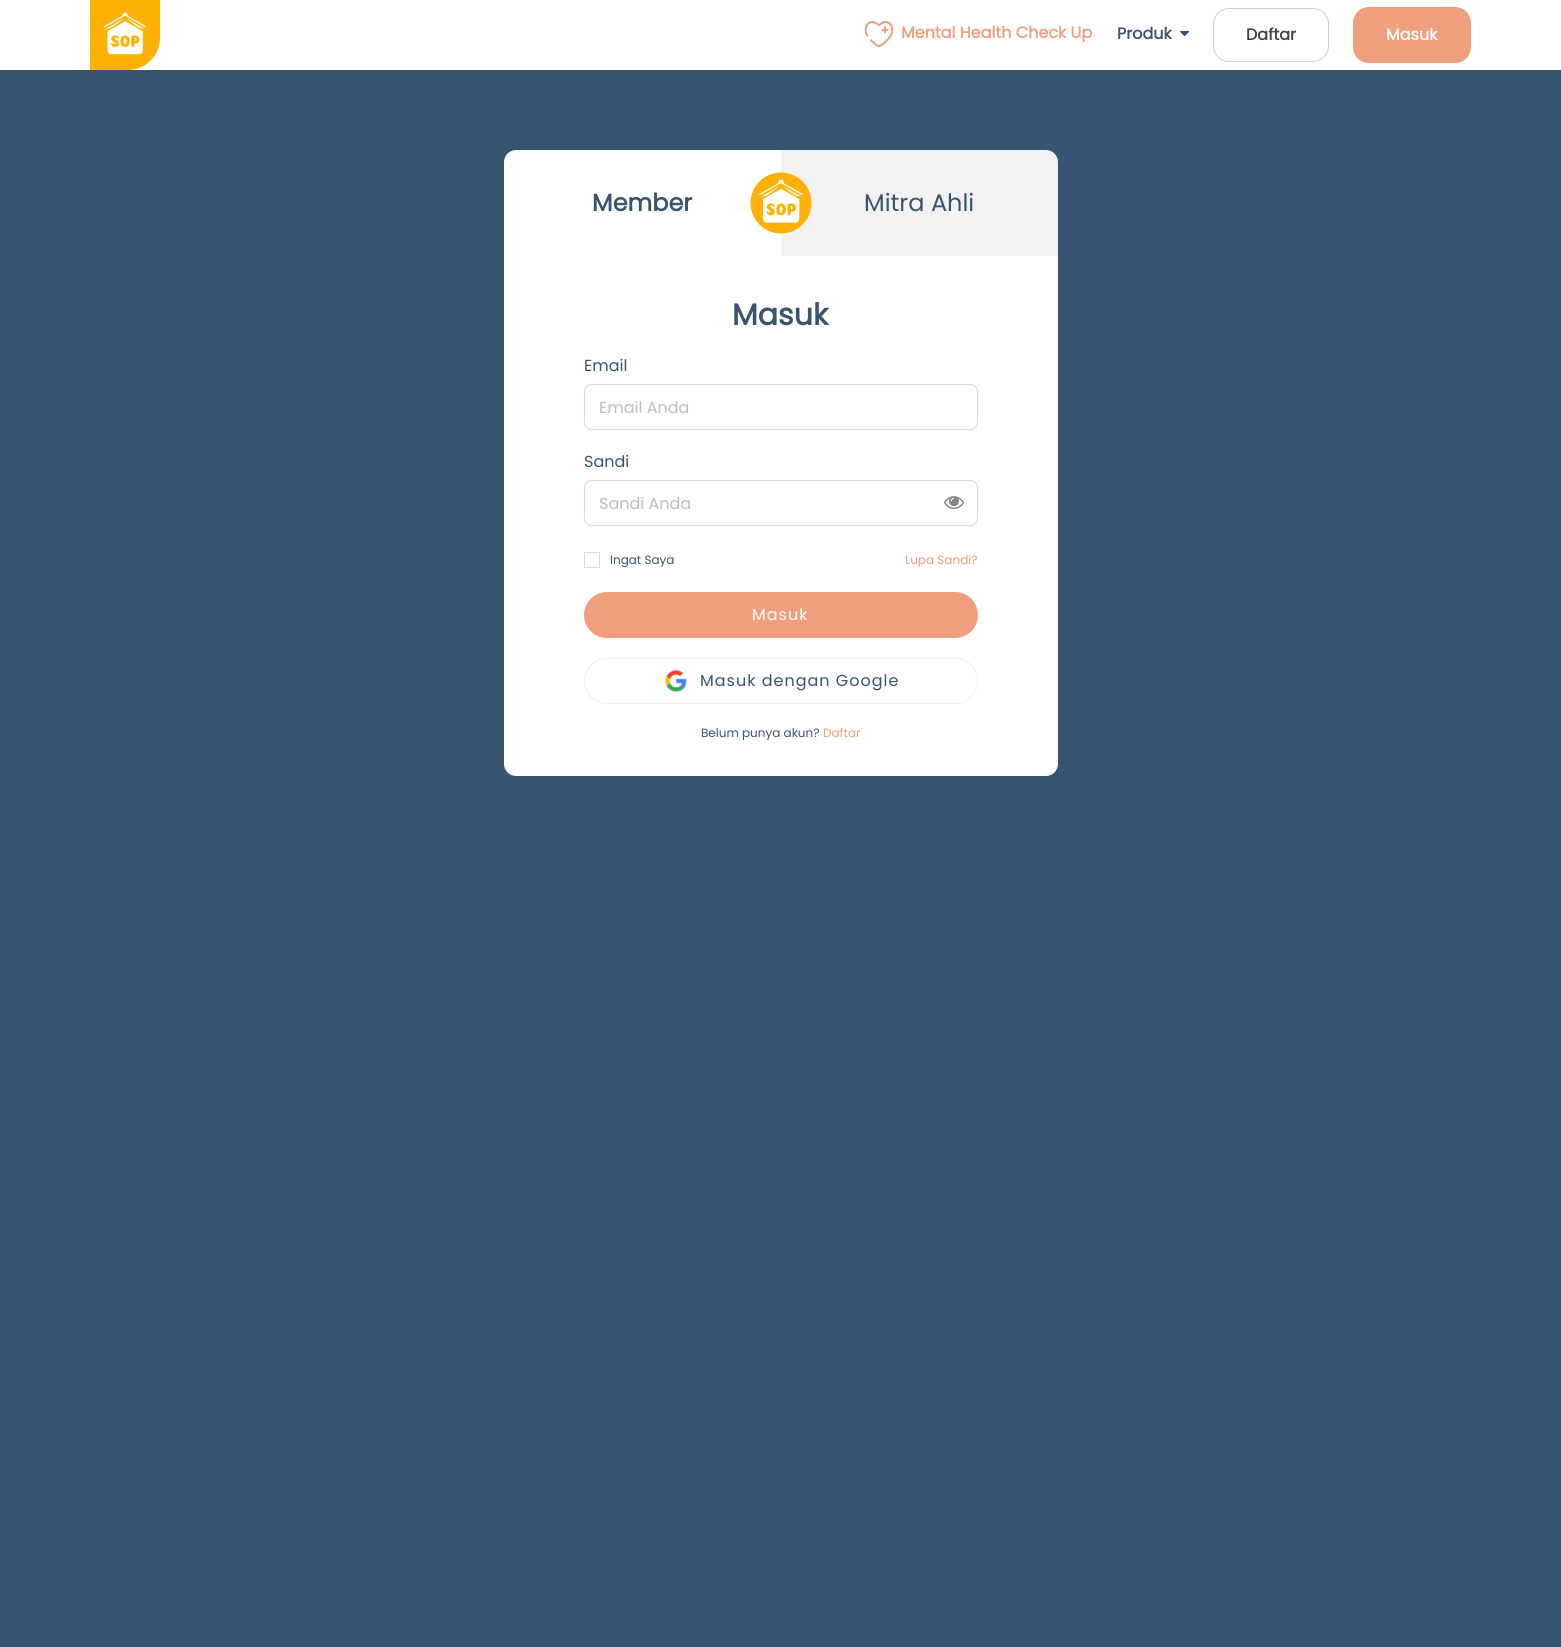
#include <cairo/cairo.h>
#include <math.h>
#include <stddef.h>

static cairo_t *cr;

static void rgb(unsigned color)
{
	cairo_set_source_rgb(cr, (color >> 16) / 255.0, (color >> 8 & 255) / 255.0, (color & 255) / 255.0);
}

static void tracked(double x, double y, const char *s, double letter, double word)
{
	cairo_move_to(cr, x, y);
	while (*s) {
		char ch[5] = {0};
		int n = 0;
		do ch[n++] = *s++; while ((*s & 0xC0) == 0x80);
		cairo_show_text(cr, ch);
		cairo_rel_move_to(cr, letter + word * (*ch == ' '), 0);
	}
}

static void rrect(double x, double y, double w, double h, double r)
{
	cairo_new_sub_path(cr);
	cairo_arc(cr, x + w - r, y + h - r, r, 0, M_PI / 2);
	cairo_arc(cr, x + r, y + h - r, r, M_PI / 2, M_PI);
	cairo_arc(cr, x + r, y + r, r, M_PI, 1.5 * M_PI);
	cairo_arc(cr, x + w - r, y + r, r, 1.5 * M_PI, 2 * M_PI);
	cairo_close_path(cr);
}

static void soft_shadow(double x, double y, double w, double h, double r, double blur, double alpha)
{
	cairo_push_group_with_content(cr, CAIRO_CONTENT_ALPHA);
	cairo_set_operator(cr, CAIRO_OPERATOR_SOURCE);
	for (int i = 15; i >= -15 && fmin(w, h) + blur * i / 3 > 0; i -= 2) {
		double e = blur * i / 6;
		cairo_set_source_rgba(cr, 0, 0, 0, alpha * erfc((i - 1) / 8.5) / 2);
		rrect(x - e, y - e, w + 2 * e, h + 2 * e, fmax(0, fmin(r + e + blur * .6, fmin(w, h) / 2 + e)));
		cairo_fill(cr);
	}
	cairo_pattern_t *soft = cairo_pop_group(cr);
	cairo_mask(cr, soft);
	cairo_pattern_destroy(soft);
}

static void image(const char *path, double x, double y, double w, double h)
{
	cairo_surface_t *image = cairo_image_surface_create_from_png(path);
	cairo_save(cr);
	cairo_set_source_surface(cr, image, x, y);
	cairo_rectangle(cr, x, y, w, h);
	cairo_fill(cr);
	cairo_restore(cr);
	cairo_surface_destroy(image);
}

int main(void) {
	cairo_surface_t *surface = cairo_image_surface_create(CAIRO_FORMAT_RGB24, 1561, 1647);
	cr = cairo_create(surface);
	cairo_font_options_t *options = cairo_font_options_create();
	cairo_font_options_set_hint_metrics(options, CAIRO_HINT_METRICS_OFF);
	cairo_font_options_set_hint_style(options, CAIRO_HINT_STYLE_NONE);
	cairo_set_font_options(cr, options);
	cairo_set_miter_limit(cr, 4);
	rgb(0xffffff);
	cairo_paint(cr);
	rgb(0xffb103);
	cairo_new_path(cr);
	cairo_move_to(cr, 90, 0);
	cairo_line_to(cr, 160, 0);
	cairo_line_to(cr, 160, 38);
	cairo_curve_to(cr, 160, 55.5, 145.5, 70, 128, 70);
	cairo_line_to(cr, 90, 70);
	cairo_close_path(cr);
	cairo_fill(cr);
	image("img/1.png", 103, 12, 44, 43);
	image("img/2.png", 864, 21, 30, 26);
	image("img/3.png", 1180, 31, 10, 6);
	rrect(1213.5, 8.5, 115, 53, 15.5);
	rgb(0xcfcfcf);
	cairo_set_line_width(cr, 1);
	cairo_stroke(cr);
	rgb(0xef9f7d);
	rrect(1353, 7, 118, 56, 16);
	cairo_fill(cr);
	rgb(0x385470);
	cairo_rectangle(cr, 0, 70, 1561, 1577);
	cairo_fill(cr);
	rgb(0xffffff);
	cairo_new_path(cr);
	cairo_move_to(cr, 516, 150);
	cairo_line_to(cr, 781, 150);
	cairo_line_to(cr, 781, 256);
	cairo_line_to(cr, 504, 256);
	cairo_line_to(cr, 504, 162);
	cairo_curve_to(cr, 504, 155.5, 509.5, 150, 516, 150);
	cairo_close_path(cr);
	cairo_fill(cr);
	rgb(0xf2f2f2);
	cairo_new_path(cr);
	cairo_move_to(cr, 781, 150);
	cairo_line_to(cr, 1046, 150);
	cairo_curve_to(cr, 1052.5, 150, 1058, 155.5, 1058, 162);
	cairo_line_to(cr, 1058, 256);
	cairo_line_to(cr, 781, 256);
	cairo_close_path(cr);
	cairo_fill(cr);
	image("img/4.png", 750, 172, 62, 62);
	rgb(0xffffff);
	cairo_new_path(cr);
	cairo_move_to(cr, 504, 256);
	cairo_line_to(cr, 1058, 256);
	cairo_line_to(cr, 1058, 764);
	cairo_curve_to(cr, 1058, 770.5, 1052.5, 776, 1046, 776);
	cairo_line_to(cr, 516, 776);
	cairo_curve_to(cr, 509.5, 776, 504, 770.5, 504, 764);
	cairo_close_path(cr);
	cairo_fill(cr);
	rgb(0x000000);
	soft_shadow(584, 385, 394, 46, 8, 1, 0.05);
	rgb(0xffffff);
	rrect(584.5, 384.5, 393, 45, 7.5);
	cairo_fill_preserve(cr);
	rgb(0xd5dae1);
	cairo_stroke(cr);
	rgb(0x000000);
	soft_shadow(584, 481, 394, 46, 8, 1, 0.05);
	rgb(0xffffff);
	rrect(584.5, 480.5, 393, 45, 7.5);
	cairo_fill_preserve(cr);
	rgb(0xd5dae1);
	cairo_stroke(cr);
	image("img/5.png", 944, 496, 20, 13);
	cairo_rectangle(cr, 584.5, 552.5, 15, 15);
	cairo_stroke(cr);
	rgb(0xef9f7d);
	rrect(584, 592, 394, 46, 23);
	cairo_fill(cr);
	rrect(584.5, 658.5, 393, 45, 22.5);
	rgb(0xf7ece4);
	cairo_stroke(cr);
	image("img/6.png", 665, 669, 23, 23);
	cairo_select_font_face(cr, "Poppins", CAIRO_FONT_SLANT_NORMAL, CAIRO_FONT_WEIGHT_BOLD);
	cairo_set_font_size(cr, 16);
	rgb(0xef9f7d);
	cairo_move_to(cr, 901, 38);
	cairo_show_text(cr, "Mental Health Check Up");
	rgb(0x385470);
	cairo_move_to(cr, 1117, 39);
	cairo_show_text(cr, "Produk");
	rgb(0x434343);
	cairo_move_to(cr, 1246, 40);
	cairo_show_text(cr, "Daftar");
	rgb(0xffffff);
	cairo_move_to(cr, 1386, 40);
	cairo_show_text(cr, "Masuk");
	cairo_set_font_size(cr, 24);
	rgb(0x385470);
	cairo_move_to(cr, 592, 211);
	cairo_show_text(cr, "Member");
	cairo_select_font_face(cr, "Poppins", CAIRO_FONT_SLANT_NORMAL, CAIRO_FONT_WEIGHT_NORMAL);
	cairo_move_to(cr, 864, 211);
	cairo_show_text(cr, "Mitra Ahli");
	cairo_select_font_face(cr, "Poppins", CAIRO_FONT_SLANT_NORMAL, CAIRO_FONT_WEIGHT_BOLD);
	cairo_set_font_size(cr, 30);
	cairo_move_to(cr, 732, 325);
	cairo_show_text(cr, "Masuk");
	cairo_select_font_face(cr, "Poppins", CAIRO_FONT_SLANT_NORMAL, CAIRO_FONT_WEIGHT_NORMAL);
	cairo_set_font_size(cr, 16);
	cairo_move_to(cr, 584, 371);
	cairo_show_text(cr, "Email");
	rgb(0xbdbdbd);
	cairo_move_to(cr, 599, 413);
	cairo_show_text(cr, "Email Anda");
	rgb(0x385470);
	cairo_move_to(cr, 584, 467);
	cairo_show_text(cr, "Sandi");
	rgb(0xbdbdbd);
	cairo_move_to(cr, 599, 509);
	cairo_show_text(cr, "Sandi Anda");
	cairo_set_font_size(cr, 12);
	rgb(0x385470);
	cairo_move_to(cr, 610, 564);
	cairo_show_text(cr, "Ingat Saya");
	rgb(0xef9f7d);
	cairo_move_to(cr, 905, 564);
	cairo_show_text(cr, "Lupa Sandi?");
	cairo_set_font_size(cr, 16);
	rgb(0xffffff);
	tracked(752, 620, "Masuk", 1, 0);
	rgb(0x385470);
	tracked(700, 686, "Masuk dengan Google", 1, 0);
	cairo_set_font_size(cr, 12);
	cairo_move_to(cr, 701, 737);
	cairo_show_text(cr, "Belum punya akun?");
	rgb(0xef9f7d);
	cairo_move_to(cr, 823, 737);
	cairo_show_text(cr, "Daftar");
	cairo_surface_write_to_png(surface, "page.png");
	cairo_font_options_destroy(options);
	cairo_destroy(cr);
	cairo_surface_destroy(surface);
	return 0;
}
